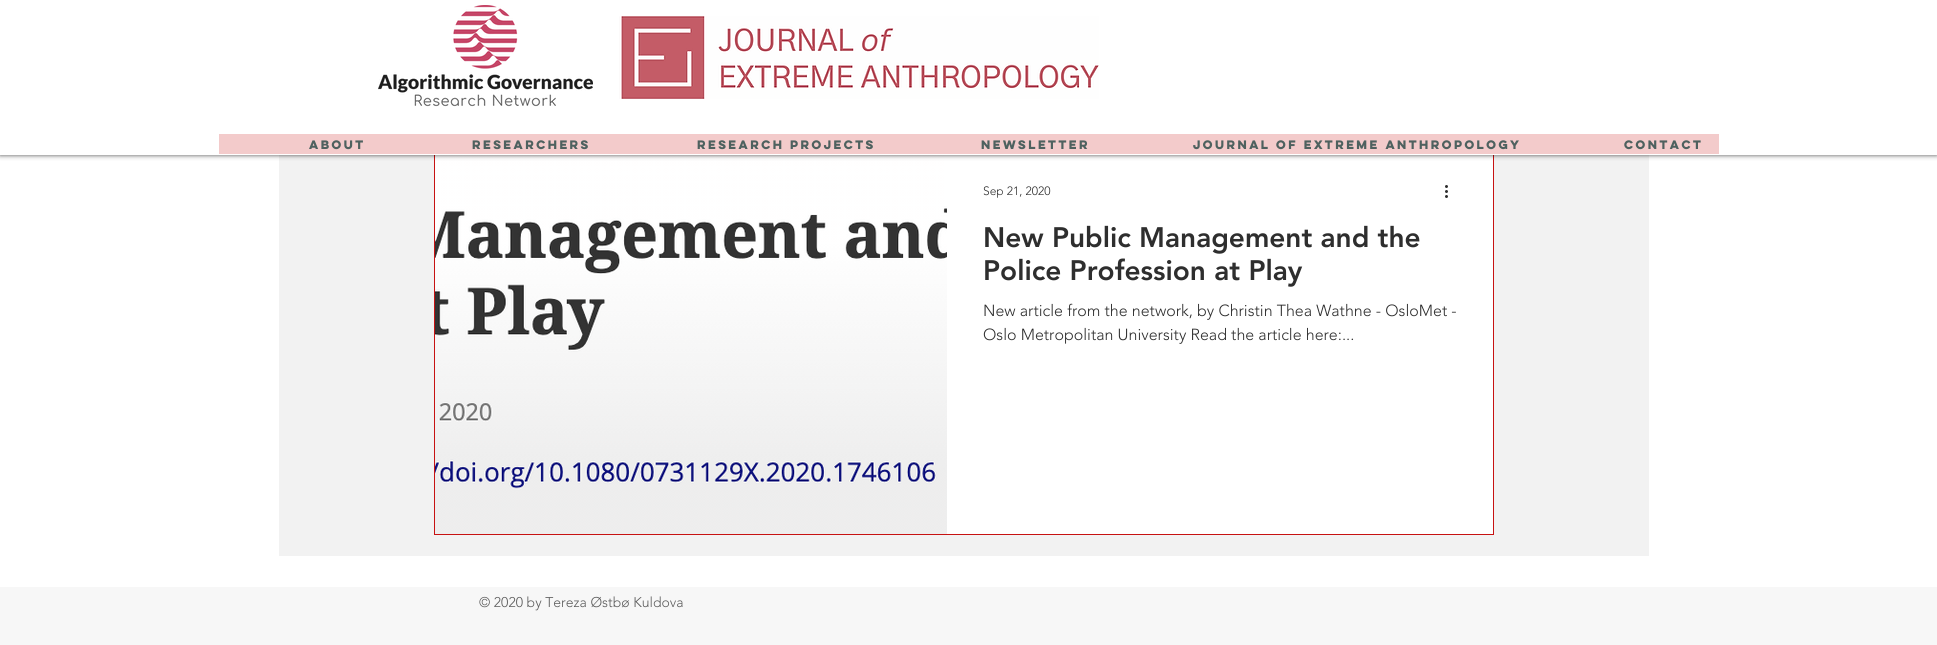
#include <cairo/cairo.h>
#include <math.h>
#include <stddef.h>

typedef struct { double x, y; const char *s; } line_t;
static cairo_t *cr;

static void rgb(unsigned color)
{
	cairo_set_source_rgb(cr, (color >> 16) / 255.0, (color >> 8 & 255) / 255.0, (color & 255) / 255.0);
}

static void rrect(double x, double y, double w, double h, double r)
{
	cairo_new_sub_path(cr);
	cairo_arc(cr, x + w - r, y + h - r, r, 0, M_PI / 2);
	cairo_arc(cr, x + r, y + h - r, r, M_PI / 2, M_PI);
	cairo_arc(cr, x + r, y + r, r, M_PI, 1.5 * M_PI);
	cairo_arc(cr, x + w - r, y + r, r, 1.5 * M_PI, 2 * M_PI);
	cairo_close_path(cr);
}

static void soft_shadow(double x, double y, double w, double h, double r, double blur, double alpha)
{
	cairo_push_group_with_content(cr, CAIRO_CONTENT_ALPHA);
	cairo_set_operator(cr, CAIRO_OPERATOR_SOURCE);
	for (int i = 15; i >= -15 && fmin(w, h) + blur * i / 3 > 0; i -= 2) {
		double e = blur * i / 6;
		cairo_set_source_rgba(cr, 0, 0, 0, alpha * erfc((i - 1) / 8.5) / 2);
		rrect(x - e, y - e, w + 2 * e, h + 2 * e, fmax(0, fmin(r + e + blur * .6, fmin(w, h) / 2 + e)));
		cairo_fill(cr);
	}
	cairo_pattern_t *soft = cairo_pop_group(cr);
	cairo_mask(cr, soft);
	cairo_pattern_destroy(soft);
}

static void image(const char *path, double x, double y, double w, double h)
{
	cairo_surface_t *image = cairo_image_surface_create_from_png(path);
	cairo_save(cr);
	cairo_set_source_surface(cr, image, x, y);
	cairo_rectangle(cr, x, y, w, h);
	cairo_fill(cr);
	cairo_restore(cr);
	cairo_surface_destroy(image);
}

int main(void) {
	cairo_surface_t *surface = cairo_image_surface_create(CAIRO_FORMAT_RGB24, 1937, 645);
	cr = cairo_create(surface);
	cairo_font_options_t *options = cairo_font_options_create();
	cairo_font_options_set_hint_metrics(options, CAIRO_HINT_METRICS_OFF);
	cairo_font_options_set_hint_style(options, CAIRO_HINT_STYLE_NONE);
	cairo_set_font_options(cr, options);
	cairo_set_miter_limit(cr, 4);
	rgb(0xffffff);
	cairo_paint(cr);
	rgb(0xf2f2f2);
	cairo_rectangle(cr, 279, 155, 1370, 401);
	cairo_fill(cr);
	cairo_rectangle(cr, 434.5, 149.5, 1059, 385);
	rgb(0xc71212);
	cairo_set_line_width(cr, 1);
	cairo_stroke(cr);
	image("img/3.png", 435, 155, 512, 379);
	rgb(0xffffff);
	cairo_rectangle(cr, 947, 155, 546, 379);
	cairo_fill(cr);
	rgb(0x000000);
	soft_shadow(0, 0, 1937, 155, 0, 2.5, 0.7);
	rgb(0xffffff);
	cairo_rectangle(cr, 0, 0, 1937, 155);
	cairo_fill(cr);
	image("img/1.png", 378, 5, 215, 102);
	image("img/2.png", 619, 16, 480, 83);
	rgb(0xf3cbcb);
	cairo_rectangle(cr, 219, 134, 1500, 20);
	cairo_fill(cr);
	image("img/4.png", 1445, 185, 3, 13);
	rgb(0xf7f7f7);
	cairo_rectangle(cr, 0, 587, 1937, 58);
	cairo_fill(cr);
	cairo_select_font_face(cr, "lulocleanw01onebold", CAIRO_FONT_SLANT_NORMAL, CAIRO_FONT_WEIGHT_BOLD);
	cairo_set_font_size(cr, 11);
	rgb(0x4e615f);
	{
		static const line_t items[] = {
			{309, 149, "About"},
			{472, 149, "Researchers"},
			{697, 149, "Research Projects"},
			{981, 149, "Newsletter"},
			{1193, 149, "JOURNAL OF EXTREME ANTHROPOLOGY"},
			{1624, 149, "Contact"},
		};
		for (size_t i = 0; i < sizeof items / sizeof *items; i++) {
			cairo_move_to(cr, items[i].x, items[i].y);
			cairo_show_text(cr, items[i].s);
		}
	}
	cairo_select_font_face(cr, "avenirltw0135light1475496 Light", CAIRO_FONT_SLANT_NORMAL, CAIRO_FONT_WEIGHT_NORMAL);
	cairo_set_font_size(cr, 12);
	rgb(0x2e2e2e);
	cairo_move_to(cr, 983, 195);
	cairo_show_text(cr, "Sep 21, 2020");
	cairo_select_font_face(cr, "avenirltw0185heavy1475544 Black", CAIRO_FONT_SLANT_NORMAL, CAIRO_FONT_WEIGHT_NORMAL);
	cairo_set_font_size(cr, 28);
	cairo_move_to(cr, 983, 247);
	cairo_show_text(cr, "New Public Management and the");
	cairo_move_to(cr, 983, 280);
	cairo_show_text(cr, "Police Profession at Play");
	cairo_select_font_face(cr, "avenirltw0135light1475496 Light", CAIRO_FONT_SLANT_NORMAL, CAIRO_FONT_WEIGHT_NORMAL);
	cairo_set_font_size(cr, 16);
	cairo_move_to(cr, 983, 316);
	cairo_show_text(cr, "New article from the network, by Christin Thea Wathne - OsloMet -");
	cairo_move_to(cr, 983, 340);
	cairo_show_text(cr, "Oslo Metropolitan University Read the article here:...");
	cairo_set_font_size(cr, 14);
	rgb(0x5b5b5b);
	cairo_move_to(cr, 479, 607);
	cairo_show_text(cr, "© 2020 by Tereza Østbø Kuldova");
	cairo_surface_write_to_png(surface, "page.png");
	cairo_font_options_destroy(options);
	cairo_destroy(cr);
	cairo_surface_destroy(surface);
	return 0;
}
